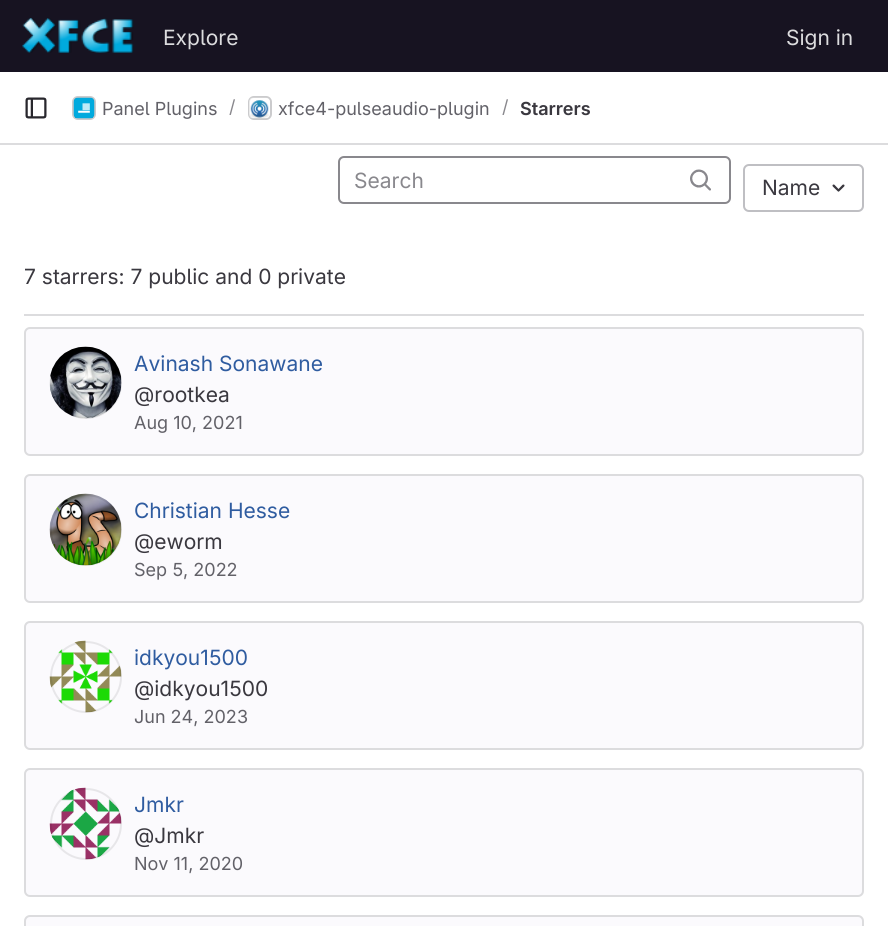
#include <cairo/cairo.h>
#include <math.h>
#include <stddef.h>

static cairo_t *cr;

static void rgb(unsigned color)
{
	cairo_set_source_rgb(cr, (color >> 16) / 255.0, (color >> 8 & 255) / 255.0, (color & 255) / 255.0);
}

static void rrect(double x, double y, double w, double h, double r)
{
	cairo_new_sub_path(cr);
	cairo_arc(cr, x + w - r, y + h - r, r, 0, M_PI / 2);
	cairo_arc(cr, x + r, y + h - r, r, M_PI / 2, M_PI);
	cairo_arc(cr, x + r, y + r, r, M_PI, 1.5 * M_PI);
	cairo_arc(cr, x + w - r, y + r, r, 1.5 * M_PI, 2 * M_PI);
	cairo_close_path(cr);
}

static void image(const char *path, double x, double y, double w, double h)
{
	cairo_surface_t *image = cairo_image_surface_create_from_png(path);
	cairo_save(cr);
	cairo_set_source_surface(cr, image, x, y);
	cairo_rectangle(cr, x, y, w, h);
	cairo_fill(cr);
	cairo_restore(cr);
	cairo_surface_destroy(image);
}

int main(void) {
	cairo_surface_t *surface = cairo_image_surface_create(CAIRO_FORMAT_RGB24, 888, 926);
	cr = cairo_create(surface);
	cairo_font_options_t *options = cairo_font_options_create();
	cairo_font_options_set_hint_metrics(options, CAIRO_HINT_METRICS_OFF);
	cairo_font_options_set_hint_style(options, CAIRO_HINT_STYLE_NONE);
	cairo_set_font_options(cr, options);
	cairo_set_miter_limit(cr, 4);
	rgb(0xffffff);
	cairo_paint(cr);
	rgb(0x171321);
	cairo_rectangle(cr, 0, 0, 888, 72);
	cairo_fill(cr);
	image("img/1.png", 22, 18, 112, 35);
	rgb(0xdcdcde);
	cairo_rectangle(cr, 0, 143, 888, 2);
	cairo_fill(cr);
	image("img/2.png", 25, 97, 22, 22);
	rrect(73, 97, 22, 22, 5);
	cairo_stroke(cr);
	image("img/3.png", 73, 97, 22, 22);
	rrect(73, 97, 22, 22, 5);
	cairo_set_source_rgba(cr, 0.02, 0.02, 0.024, 0.08);
	cairo_stroke(cr);
	rrect(249, 97, 22, 22, 5);
	rgb(0xdcdcde);
	cairo_stroke(cr);
	image("img/4.png", 249, 97, 21, 22);
	rrect(249, 97, 22, 22, 5);
	cairo_set_source_rgba(cr, 0.02, 0.02, 0.024, 0.08);
	cairo_stroke(cr);
	rgb(0xdcdcde);
	cairo_rectangle(cr, 24, 314, 840, 2);
	cairo_fill(cr);
	rrect(339, 157, 391, 46, 5);
	rgb(0x89888d);
	cairo_stroke(cr);
	image("img/5.png", 690, 169, 21, 22);
	rrect(744, 165, 119, 46, 5);
	rgb(0xbfbfc3);
	cairo_stroke(cr);
	image("img/6.png", 832, 184, 13, 8);
	rgb(0xfbfafd);
	rrect(25, 328, 838, 127, 5);
	cairo_fill_preserve(cr);
	rgb(0xdcdcde);
	cairo_stroke(cr);
	image("img/7.png", 49, 346, 73, 73);
	cairo_arc(cr, 86, 383, 35, 0, 2 * M_PI);
	cairo_set_source_rgba(cr, 0.02, 0.02, 0.024, 0.08);
	cairo_stroke(cr);
	rgb(0xfbfafd);
	rrect(25, 475, 838, 127, 5);
	cairo_fill_preserve(cr);
	rgb(0xdcdcde);
	cairo_stroke(cr);
	image("img/8.png", 49, 493, 73, 73);
	cairo_arc(cr, 86, 530, 35, 0, 2 * M_PI);
	cairo_set_source_rgba(cr, 0.02, 0.02, 0.024, 0.08);
	cairo_stroke(cr);
	rgb(0xfbfafd);
	rrect(25, 622, 838, 127, 5);
	cairo_fill_preserve(cr);
	rgb(0xdcdcde);
	cairo_stroke(cr);
	image("img/9.png", 49, 640, 73, 73);
	cairo_arc(cr, 86, 677, 35, 0, 2 * M_PI);
	cairo_set_source_rgba(cr, 0.02, 0.02, 0.024, 0.08);
	cairo_stroke(cr);
	rgb(0xfbfafd);
	rrect(25, 769, 838, 127, 5);
	cairo_fill_preserve(cr);
	rgb(0xdcdcde);
	cairo_stroke(cr);
	image("img/10.png", 49, 787, 73, 73);
	cairo_arc(cr, 86, 824, 35, 0, 2 * M_PI);
	cairo_set_source_rgba(cr, 0.02, 0.02, 0.024, 0.08);
	cairo_stroke(cr);
	rgb(0xfbfafd);
	rrect(25, 916, 838, 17, 5);
	cairo_fill_preserve(cr);
	rgb(0xdcdcde);
	cairo_stroke(cr);
	cairo_select_font_face(cr, "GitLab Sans", CAIRO_FONT_SLANT_NORMAL, CAIRO_FONT_WEIGHT_NORMAL);
	cairo_set_font_size(cr, 21);
	cairo_move_to(cr, 163, 45);
	cairo_show_text(cr, "Explore");
	cairo_move_to(cr, 786, 45);
	cairo_show_text(cr, "Sign in");
	cairo_set_font_size(cr, 18);
	rgb(0x626168);
	cairo_move_to(cr, 102, 115);
	cairo_show_text(cr, "Panel Plugins");
	rgb(0x89888d);
	cairo_move_to(cr, 229, 113);
	cairo_show_text(cr, "/");
	rgb(0x626168);
	cairo_move_to(cr, 278, 115);
	cairo_show_text(cr, "xfce4-pulseaudio-plugin");
	rgb(0x89888d);
	cairo_move_to(cr, 502, 113);
	cairo_show_text(cr, "/");
	cairo_select_font_face(cr, "GitLab Sans SemiBold", CAIRO_FONT_SLANT_NORMAL, CAIRO_FONT_WEIGHT_NORMAL);
	rgb(0x3a383f);
	cairo_move_to(cr, 520, 115);
	cairo_show_text(cr, "Starrers");
	cairo_select_font_face(cr, "GitLab Sans", CAIRO_FONT_SLANT_NORMAL, CAIRO_FONT_WEIGHT_NORMAL);
	cairo_set_font_size(cr, 21);
	rgb(0x89888d);
	cairo_move_to(cr, 354, 188);
	cairo_show_text(cr, "Search");
	rgb(0x3a383f);
	cairo_move_to(cr, 762, 195);
	cairo_show_text(cr, "Name");
	cairo_move_to(cr, 24, 284);
	cairo_show_text(cr, "7 starrers: 7 public and 0 private");
	rgb(0x2f5ca0);
	cairo_move_to(cr, 134, 371);
	cairo_show_text(cr, "Avinash Sonawane");
	rgb(0x3a383f);
	cairo_move_to(cr, 134, 402);
	cairo_show_text(cr, "@rootkea");
	cairo_set_font_size(cr, 18);
	rgb(0x626168);
	cairo_move_to(cr, 134, 429);
	cairo_show_text(cr, "Aug 10, 2021");
	cairo_set_font_size(cr, 21);
	rgb(0x2f5ca0);
	cairo_move_to(cr, 134, 518);
	cairo_show_text(cr, "Christian Hesse");
	rgb(0x3a383f);
	cairo_move_to(cr, 134, 549);
	cairo_show_text(cr, "@eworm");
	cairo_set_font_size(cr, 18);
	rgb(0x626168);
	cairo_move_to(cr, 134, 576);
	cairo_show_text(cr, "Sep 5, 2022");
	cairo_set_font_size(cr, 21);
	rgb(0x2f5ca0);
	cairo_move_to(cr, 134, 665);
	cairo_show_text(cr, "idkyou1500");
	rgb(0x3a383f);
	cairo_move_to(cr, 134, 696);
	cairo_show_text(cr, "@idkyou1500");
	cairo_set_font_size(cr, 18);
	rgb(0x626168);
	cairo_move_to(cr, 134, 723);
	cairo_show_text(cr, "Jun 24, 2023");
	cairo_set_font_size(cr, 21);
	rgb(0x2f5ca0);
	cairo_move_to(cr, 134, 812);
	cairo_show_text(cr, "Jmkr");
	rgb(0x3a383f);
	cairo_move_to(cr, 134, 843);
	cairo_show_text(cr, "@Jmkr");
	cairo_set_font_size(cr, 18);
	rgb(0x626168);
	cairo_move_to(cr, 134, 870);
	cairo_show_text(cr, "Nov 11, 2020");
	cairo_surface_write_to_png(surface, "page.png");
	cairo_font_options_destroy(options);
	cairo_destroy(cr);
	cairo_surface_destroy(surface);
	return 0;
}
